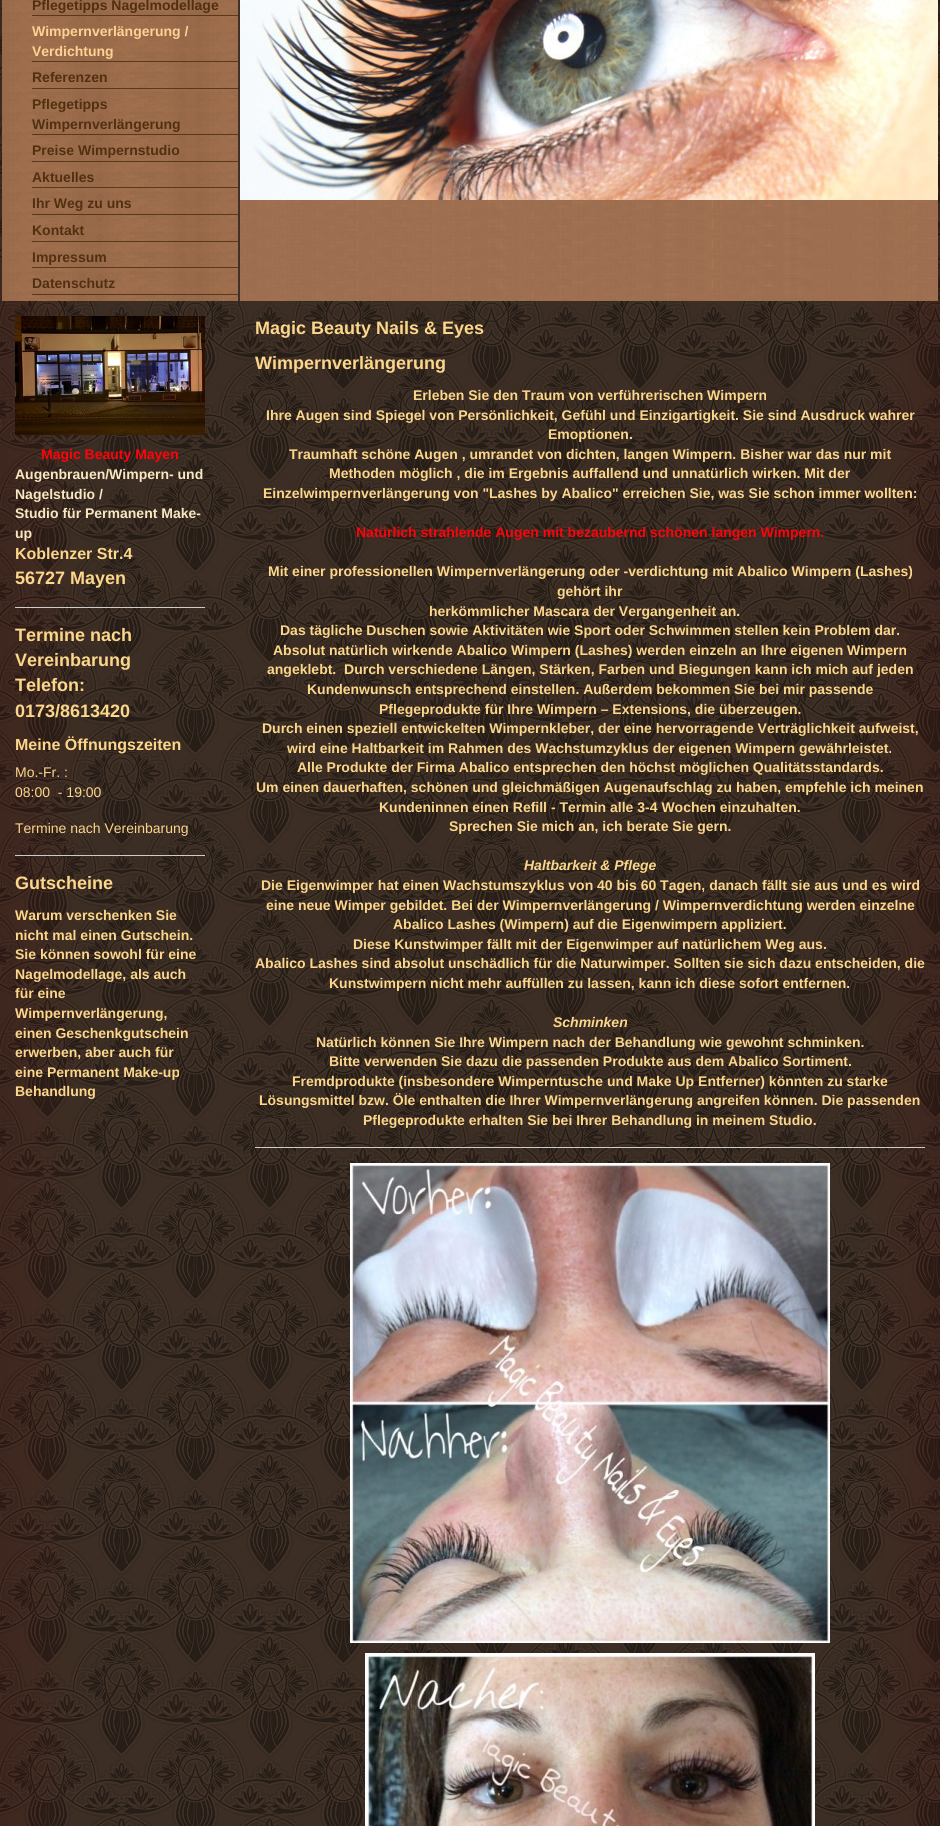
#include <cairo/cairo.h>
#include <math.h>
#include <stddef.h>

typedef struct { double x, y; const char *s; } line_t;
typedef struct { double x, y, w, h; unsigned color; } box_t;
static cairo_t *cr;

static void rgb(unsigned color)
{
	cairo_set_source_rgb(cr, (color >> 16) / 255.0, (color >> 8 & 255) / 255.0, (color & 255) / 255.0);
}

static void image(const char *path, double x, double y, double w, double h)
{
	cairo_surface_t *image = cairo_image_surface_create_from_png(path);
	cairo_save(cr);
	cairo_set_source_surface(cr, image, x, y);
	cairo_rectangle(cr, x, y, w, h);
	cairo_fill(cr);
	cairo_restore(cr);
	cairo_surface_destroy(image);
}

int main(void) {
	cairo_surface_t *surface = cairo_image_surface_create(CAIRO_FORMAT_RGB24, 940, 1826);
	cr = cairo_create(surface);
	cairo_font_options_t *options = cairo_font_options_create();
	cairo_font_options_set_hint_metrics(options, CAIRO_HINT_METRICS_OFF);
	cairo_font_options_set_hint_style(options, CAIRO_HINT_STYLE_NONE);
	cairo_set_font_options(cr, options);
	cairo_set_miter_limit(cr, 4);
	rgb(0xffffff);
	cairo_paint(cr);
	image("img/1.png", 0, 0, 940, 1826);
	image("img/2.png", 0, 0, 940, 1826);
	image("img/3.png", 2, 0, 936, 301);
	{
		static const box_t items[] = {
			{32, 15, 206, 1, 0x59391a},
			{32, 61, 206, 1, 0x59391a},
			{32, 88, 206, 1, 0x59391a},
			{32, 134, 206, 1, 0x59391a},
			{32, 161, 206, 1, 0x59391a},
			{32, 187, 206, 1, 0x59391a},
			{32, 214, 206, 1, 0x59391a},
			{32, 241, 206, 1, 0x59391a},
			{32, 267, 206, 1, 0x59391a},
			{32, 294, 206, 1, 0x59391a},
		};
		for (size_t i = 0; i < sizeof items / sizeof *items; i++) {
			rgb(items[i].color);
			cairo_rectangle(cr, items[i].x, items[i].y, items[i].w, items[i].h);
			cairo_fill(cr);
		}
	}
	image("img/4.png", 240, 0, 698, 200);
	image("img/5.png", 15, 316, 190, 119);
	{
		static const box_t items[] = {
			{15, 607, 190, 1, 0xcccccc},
			{15, 855, 190, 1, 0xcccccc},
			{255, 1147, 670, 1, 0xcccccc},
		};
		for (size_t i = 0; i < sizeof items / sizeof *items; i++) {
			rgb(items[i].color);
			cairo_rectangle(cr, items[i].x, items[i].y, items[i].w, items[i].h);
			cairo_fill(cr);
		}
	}
	image("img/6.png", 350, 1163, 480, 480);
	image("img/7.png", 365, 1653, 450, 173);
	cairo_select_font_face(cr, "Liberation Sans", CAIRO_FONT_SLANT_NORMAL, CAIRO_FONT_WEIGHT_BOLD);
	cairo_set_font_size(cr, 14);
	rgb(0x503011);
	cairo_move_to(cr, 32, 10);
	cairo_show_text(cr, "Pflegetipps Nagelmodellage");
	rgb(0xffd192);
	cairo_move_to(cr, 32, 36);
	cairo_show_text(cr, "Wimpernverlängerung /");
	cairo_move_to(cr, 32, 56);
	cairo_show_text(cr, "Verdichtung");
	rgb(0x503011);
	{
		static const line_t items[] = {
			{32, 82, "Referenzen"},
			{32, 109, "Pflegetipps"},
			{32, 129, "Wimpernverlängerung"},
			{32, 155, "Preise Wimpernstudio"},
			{32, 182, "Aktuelles"},
			{32, 208, "Ihr Weg zu uns"},
			{32, 235, "Kontakt"},
			{32, 262, "Impressum"},
			{32, 288, "Datenschutz"},
		};
		for (size_t i = 0; i < sizeof items / sizeof *items; i++) {
			cairo_move_to(cr, items[i].x, items[i].y);
			cairo_show_text(cr, items[i].s);
		}
	}
	rgb(0xfd040a);
	cairo_move_to(cr, 41, 459);
	cairo_show_text(cr, "Magic Beauty Mayen");
	rgb(0xf9e7c1);
	{
		static const line_t items[] = {
			{15, 479, "Augenbrauen/Wimpern- und"},
			{15, 499, "Nagelstudio /"},
			{15, 518, "Studio für Permanent Make-"},
			{15, 538, "up"},
		};
		for (size_t i = 0; i < sizeof items / sizeof *items; i++) {
			cairo_move_to(cr, items[i].x, items[i].y);
			cairo_show_text(cr, items[i].s);
		}
	}
	cairo_set_font_size(cr, 16);
	rgb(0xfcd68b);
	cairo_move_to(cr, 15, 559);
	cairo_show_text(cr, "Koblenzer Str.4");
	cairo_set_font_size(cr, 18);
	{
		static const line_t items[] = {
			{15, 584, "56727 Mayen"},
			{15, 641, "Termine nach"},
			{15, 666, "Vereinbarung"},
			{15, 691, "Telefon:"},
			{15, 717, "0173/8613420"},
		};
		for (size_t i = 0; i < sizeof items / sizeof *items; i++) {
			cairo_move_to(cr, items[i].x, items[i].y);
			cairo_show_text(cr, items[i].s);
		}
	}
	cairo_set_font_size(cr, 16);
	cairo_move_to(cr, 15, 750);
	cairo_show_text(cr, "Meine Öffnungszeiten");
	cairo_select_font_face(cr, "Liberation Sans", CAIRO_FONT_SLANT_NORMAL, CAIRO_FONT_WEIGHT_NORMAL);
	cairo_set_font_size(cr, 14);
	{
		static const line_t items[] = {
			{15, 777, "Mo.-Fr. :"},
			{15, 797, "08:00  - 19:00"},
			{15, 833, "Termine nach Vereinbarung"},
		};
		for (size_t i = 0; i < sizeof items / sizeof *items; i++) {
			cairo_move_to(cr, items[i].x, items[i].y);
			cairo_show_text(cr, items[i].s);
		}
	}
	cairo_select_font_face(cr, "Liberation Sans", CAIRO_FONT_SLANT_NORMAL, CAIRO_FONT_WEIGHT_BOLD);
	cairo_set_font_size(cr, 18);
	cairo_move_to(cr, 15, 889);
	cairo_show_text(cr, "Gutscheine");
	cairo_set_font_size(cr, 14);
	{
		static const line_t items[] = {
			{15, 920, "Warum verschenken Sie"},
			{15, 940, "nicht mal einen Gutschein."},
			{15, 959, "Sie können sowohl für eine"},
			{15, 979, "Nagelmodellage, als auch"},
			{15, 998, "für eine"},
			{15, 1018, "Wimpernverlängerung,"},
			{15, 1038, "einen Geschenkgutschein"},
			{15, 1057, "erwerben, aber auch für"},
			{15, 1077, "eine Permanent Make-up"},
			{15, 1096, "Behandlung"},
		};
		for (size_t i = 0; i < sizeof items / sizeof *items; i++) {
			cairo_move_to(cr, items[i].x, items[i].y);
			cairo_show_text(cr, items[i].s);
		}
	}
	cairo_set_font_size(cr, 18);
	cairo_move_to(cr, 255, 334);
	cairo_show_text(cr, "Magic Beauty Nails & Eyes");
	cairo_move_to(cr, 255, 369);
	cairo_show_text(cr, "Wimpernverlängerung");
	cairo_set_font_size(cr, 14);
	{
		static const line_t items[] = {
			{413, 400, "Erleben Sie den Traum von verführerischen Wimpern"},
			{266, 420, "Ihre Augen sind Spiegel von Persönlichkeit, Gefühl und Einzigartigkeit. Sie sind Ausdruck wahrer"},
			{548, 439, "Emoptionen."},
			{289, 459, "Traumhaft schöne Augen , umrandet von dichten, langen Wimpern. Bisher war das nur mit"},
			{329, 478, "Methoden möglich , die im Ergebnis auffallend und unnatürlich wirken. Mit der"},
			{263, 498, "Einzelwimpernverlängerung von \"Lashes by Abalico\" erreichen Sie, was Sie schon immer wollten:"},
		};
		for (size_t i = 0; i < sizeof items / sizeof *items; i++) {
			cairo_move_to(cr, items[i].x, items[i].y);
			cairo_show_text(cr, items[i].s);
		}
	}
	rgb(0xfd040a);
	cairo_move_to(cr, 356, 537);
	cairo_show_text(cr, "Natürlich strahlende Augen mit bezaubernd schönen langen Wimpern.");
	rgb(0xfcd68b);
	{
		static const line_t items[] = {
			{268, 576, "Mit einer professionellen Wimpernverlängerung oder -verdichtung mit Abalico Wimpern (Lashes)"},
			{557, 596, "gehört ihr"},
			{429, 616, "herkömmlicher Mascara der Vergangenheit an."},
			{280, 635, "Das tägliche Duschen sowie Aktivitäten wie Sport oder Schwimmen stellen kein Problem dar."},
			{273, 655, "Absolut natürlich wirkende Abalico Wimpern (Lashes) werden einzeln an Ihre eigenen Wimpern"},
			{267, 674, "angeklebt.  Durch verschiedene Längen, Stärken, Farben und Biegungen kann ich mich auf jeden"},
			{307, 694, "Kundenwunsch entsprechend einstellen. Außerdem bekommen Sie bei mir passende"},
			{379, 714, "Pflegeprodukte für Ihre Wimpern – Extensions, die überzeugen."},
			{262, 733, "Durch einen speziell entwickelten Wimpernkleber, der eine hervorragende Verträglichkeit aufweist,"},
			{287, 753, "wird eine Haltbarkeit im Rahmen des Wachstumzyklus der eigenen Wimpern gewährleistet."},
			{297, 772, "Alle Produkte der Firma Abalico entsprechen den höchst möglichen Qualitätsstandards."},
			{256, 792, "Um einen dauerhaften, schönen und gleichmäßigen Augenaufschlag zu haben, empfehle ich meinen"},
			{379, 812, "Kundeninnen einen Refill - Termin alle 3-4 Wochen einzuhalten."},
			{449, 831, "Sprechen Sie mich an, ich berate Sie gern."},
		};
		for (size_t i = 0; i < sizeof items / sizeof *items; i++) {
			cairo_move_to(cr, items[i].x, items[i].y);
			cairo_show_text(cr, items[i].s);
		}
	}
	cairo_select_font_face(cr, "Liberation Sans", CAIRO_FONT_SLANT_ITALIC, CAIRO_FONT_WEIGHT_BOLD);
	cairo_move_to(cr, 524, 870);
	cairo_show_text(cr, "Haltbarkeit & Pflege");
	cairo_select_font_face(cr, "Liberation Sans", CAIRO_FONT_SLANT_NORMAL, CAIRO_FONT_WEIGHT_BOLD);
	{
		static const line_t items[] = {
			{261, 890, "Die Eigenwimper hat einen Wachstumszyklus von 40 bis 60 Tagen, danach fällt sie aus und es wird"},
			{266, 910, "eine neue Wimper gebildet. Bei der Wimpernverlängerung / Wimpernverdichtung werden einzelne"},
			{393, 929, "Abalico Lashes (Wimpern) auf die Eigenwimpern appliziert."},
			{353, 949, "Diese Kunstwimper fällt mit der Eigenwimper auf natürlichem Weg aus."},
			{255, 968, "Abalico Lashes sind absolut unschädlich für die Naturwimper. Sollten sie sich dazu entscheiden, die"},
			{329, 988, "Kunstwimpern nicht mehr auffüllen zu lassen, kann ich diese sofort entfernen."},
		};
		for (size_t i = 0; i < sizeof items / sizeof *items; i++) {
			cairo_move_to(cr, items[i].x, items[i].y);
			cairo_show_text(cr, items[i].s);
		}
	}
	cairo_select_font_face(cr, "Liberation Sans", CAIRO_FONT_SLANT_ITALIC, CAIRO_FONT_WEIGHT_BOLD);
	cairo_move_to(cr, 553, 1027);
	cairo_show_text(cr, "Schminken");
	cairo_select_font_face(cr, "Liberation Sans", CAIRO_FONT_SLANT_NORMAL, CAIRO_FONT_WEIGHT_BOLD);
	{
		static const line_t items[] = {
			{316, 1047, "Natürlich können Sie Ihre Wimpern nach der Behandlung wie gewohnt schminken."},
			{329, 1066, "Bitte verwenden Sie dazu die passenden Produkte aus dem Abalico Sortiment."},
			{292, 1086, "Fremdprodukte (insbesondere Wimperntusche und Make Up Entferner) könnten zu starke"},
			{259, 1105, "Lösungsmittel bzw. Öle enthalten die Ihrer Wimpernverlängerung angreifen können. Die passenden"},
			{363, 1125, "Pflegeprodukte erhalten Sie bei Ihrer Behandlung in meinem Studio."},
		};
		for (size_t i = 0; i < sizeof items / sizeof *items; i++) {
			cairo_move_to(cr, items[i].x, items[i].y);
			cairo_show_text(cr, items[i].s);
		}
	}
	cairo_surface_write_to_png(surface, "page.png");
	cairo_font_options_destroy(options);
	cairo_destroy(cr);
	cairo_surface_destroy(surface);
	return 0;
}
